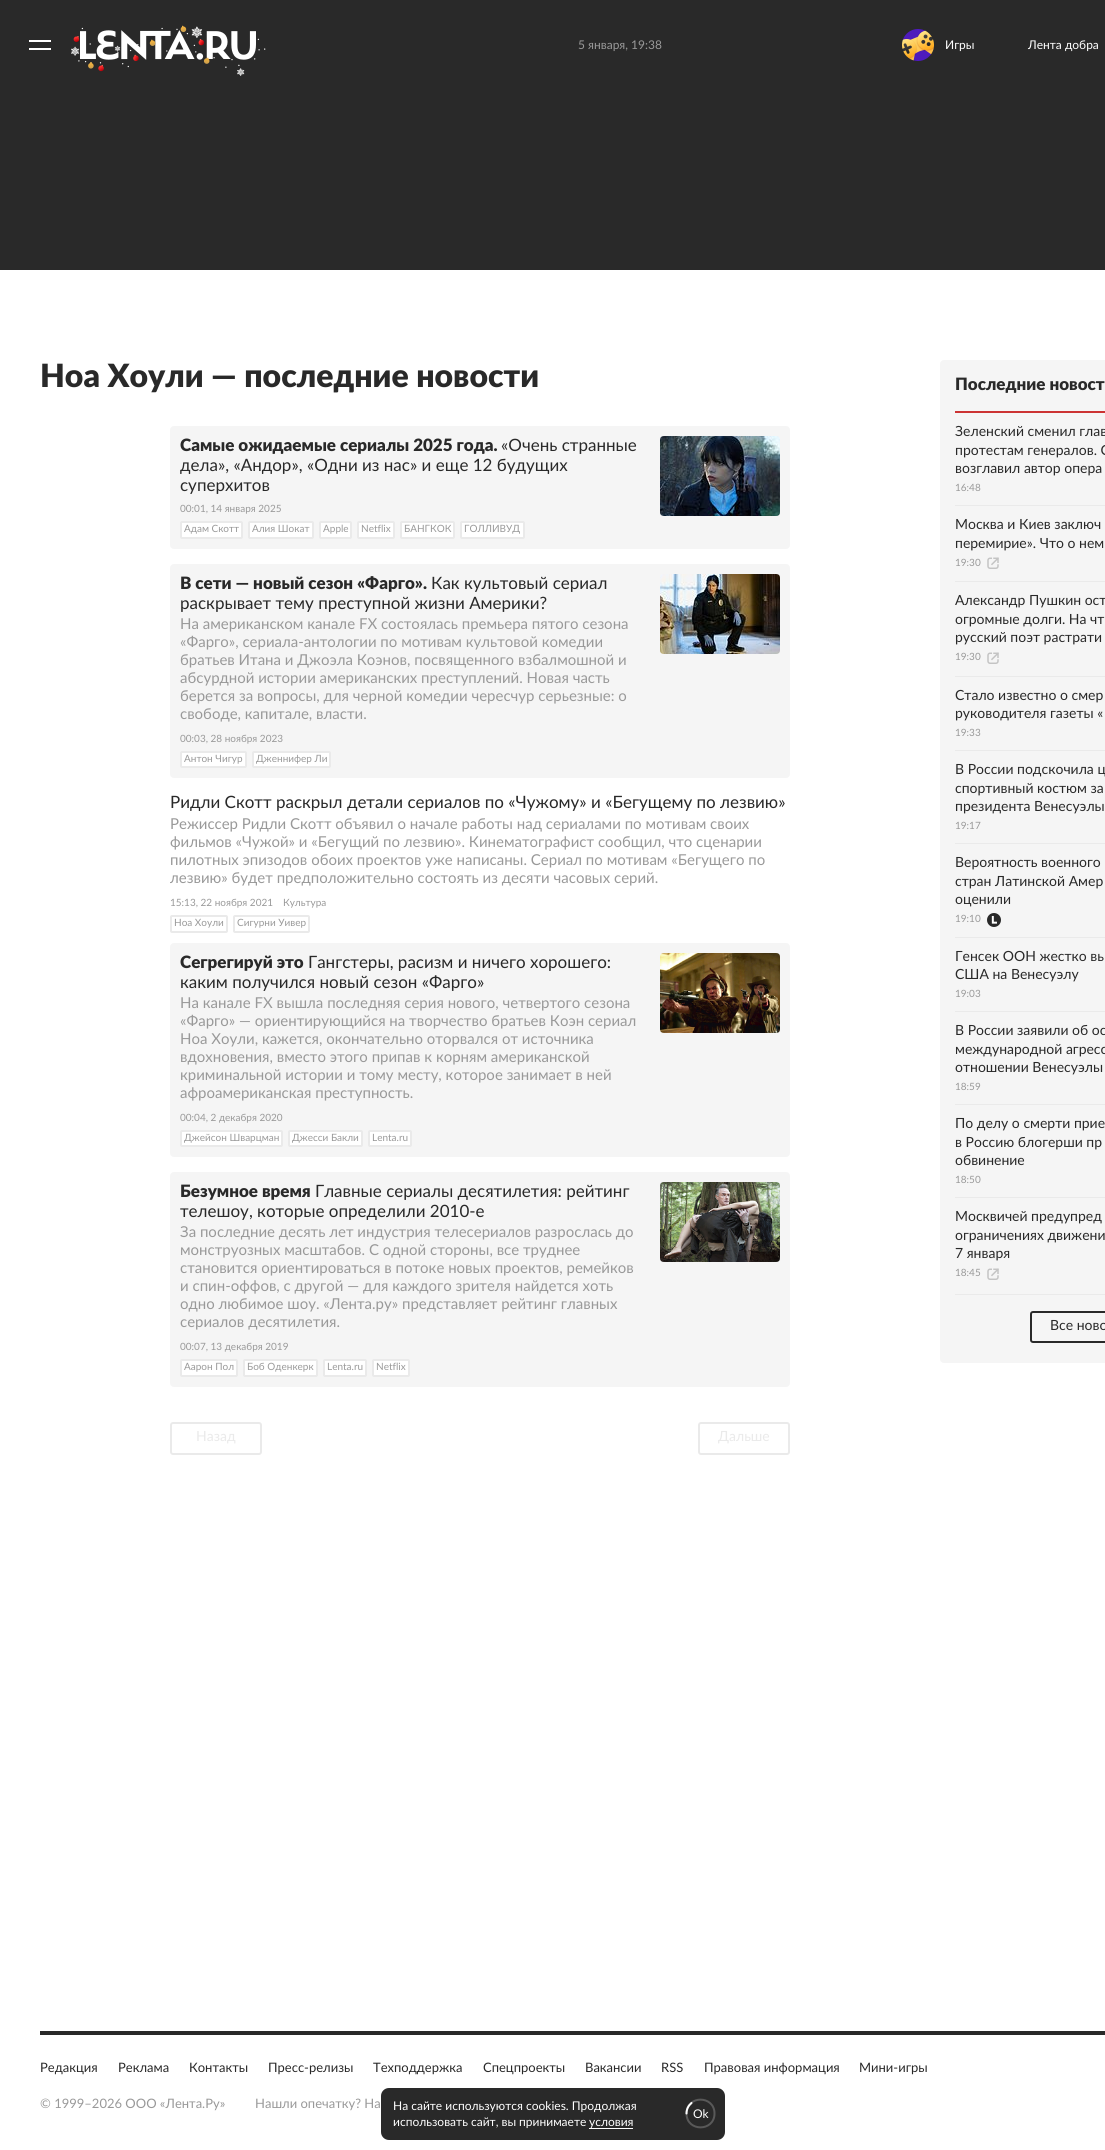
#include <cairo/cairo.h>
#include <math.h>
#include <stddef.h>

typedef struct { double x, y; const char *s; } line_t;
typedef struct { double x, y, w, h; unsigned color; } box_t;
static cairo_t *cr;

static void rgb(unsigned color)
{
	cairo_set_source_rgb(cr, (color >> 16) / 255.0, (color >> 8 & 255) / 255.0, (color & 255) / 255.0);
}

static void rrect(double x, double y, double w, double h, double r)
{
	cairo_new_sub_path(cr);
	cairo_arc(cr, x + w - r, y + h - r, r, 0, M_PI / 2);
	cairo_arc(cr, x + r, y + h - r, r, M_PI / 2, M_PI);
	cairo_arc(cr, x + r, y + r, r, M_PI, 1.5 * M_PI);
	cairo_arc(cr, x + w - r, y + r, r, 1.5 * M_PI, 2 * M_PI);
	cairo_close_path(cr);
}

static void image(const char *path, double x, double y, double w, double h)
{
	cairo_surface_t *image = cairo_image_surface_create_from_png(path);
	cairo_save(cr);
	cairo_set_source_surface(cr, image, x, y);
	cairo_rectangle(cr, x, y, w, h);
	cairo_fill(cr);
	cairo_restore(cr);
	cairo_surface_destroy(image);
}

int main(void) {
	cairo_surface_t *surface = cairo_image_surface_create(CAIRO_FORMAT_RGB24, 1105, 2150);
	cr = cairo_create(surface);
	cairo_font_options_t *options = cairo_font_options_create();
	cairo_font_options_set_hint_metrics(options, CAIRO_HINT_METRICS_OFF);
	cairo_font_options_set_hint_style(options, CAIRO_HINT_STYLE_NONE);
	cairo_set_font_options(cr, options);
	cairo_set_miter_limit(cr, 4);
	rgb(0xffffff);
	cairo_paint(cr);
	{
		static const box_t items[] = {
			{0, 0, 1105, 270, 0x292929},
			{29, 40, 22, 2, 0xffffff},
			{29, 48, 22, 2, 0xffffff},
		};
		for (size_t i = 0; i < sizeof items / sizeof *items; i++) {
			rgb(items[i].color);
			cairo_rectangle(cr, items[i].x, items[i].y, items[i].w, items[i].h);
			cairo_fill(cr);
		}
	}
	image("img/2.png", 80, 30, 176, 30);
	image("img/1.png", 71, 25, 195, 51);
	image("img/3.png", 902, 29, 32, 32);
	rgb(0xf5f5f5);
	rrect(170, 426, 620, 123, 4);
	cairo_fill(cr);
	image("img/4.png", 660, 436, 120, 80);
	rgb(0xffffff);
	rrect(181, 522, 61, 16, 1);
	cairo_fill_preserve(cr);
	rgb(0xeaeaea);
	cairo_stroke(cr);
	rgb(0xffffff);
	rrect(249, 522, 64, 16, 1);
	cairo_fill_preserve(cr);
	rgb(0xeaeaea);
	cairo_stroke(cr);
	rgb(0xffffff);
	rrect(320, 522, 31, 16, 1);
	cairo_fill_preserve(cr);
	rgb(0xeaeaea);
	cairo_stroke(cr);
	rgb(0xffffff);
	rrect(358, 522, 36, 16, 1);
	cairo_fill_preserve(cr);
	rgb(0xeaeaea);
	cairo_stroke(cr);
	rgb(0xffffff);
	rrect(401, 522, 53, 16, 1);
	cairo_fill_preserve(cr);
	rgb(0xeaeaea);
	cairo_stroke(cr);
	rgb(0xffffff);
	rrect(461, 522, 63, 16, 1);
	cairo_fill_preserve(cr);
	rgb(0xeaeaea);
	cairo_stroke(cr);
	rgb(0xf5f5f5);
	rrect(170, 564, 620, 214, 4);
	cairo_fill(cr);
	image("img/5.png", 660, 574, 120, 80);
	rgb(0xffffff);
	rrect(181, 752, 65, 15, 1);
	cairo_fill_preserve(cr);
	rgb(0xeaeaea);
	cairo_stroke(cr);
	rgb(0xffffff);
	rrect(253, 752, 77, 15, 1);
	cairo_fill_preserve(cr);
	rgb(0xeaeaea);
	cairo_stroke(cr);
	rrect(171, 916, 56, 16, 1);
	cairo_stroke(cr);
	rrect(234, 916, 75, 16, 1);
	cairo_stroke(cr);
	rgb(0xf5f5f5);
	rrect(170, 943, 620, 214, 4);
	cairo_fill(cr);
	image("img/6.png", 660, 953, 120, 80);
	rgb(0xffffff);
	rrect(181, 1131, 101, 15, 1);
	cairo_fill_preserve(cr);
	rgb(0xeaeaea);
	cairo_stroke(cr);
	rgb(0xffffff);
	rrect(289, 1131, 73, 15, 1);
	cairo_fill_preserve(cr);
	rgb(0xeaeaea);
	cairo_stroke(cr);
	rgb(0xffffff);
	rrect(369, 1131, 42, 15, 1);
	cairo_fill_preserve(cr);
	rgb(0xeaeaea);
	cairo_stroke(cr);
	rgb(0xf5f5f5);
	rrect(170, 1172, 620, 215, 4);
	cairo_fill(cr);
	image("img/7.png", 660, 1182, 120, 80);
	rgb(0xffffff);
	rrect(181, 1360, 56, 16, 1);
	cairo_fill_preserve(cr);
	rgb(0xeaeaea);
	cairo_stroke(cr);
	rgb(0xffffff);
	rrect(244, 1360, 73, 16, 1);
	cairo_fill_preserve(cr);
	rgb(0xeaeaea);
	cairo_stroke(cr);
	rgb(0xffffff);
	rrect(324, 1360, 42, 16, 1);
	cairo_fill_preserve(cr);
	rgb(0xeaeaea);
	cairo_stroke(cr);
	rgb(0xffffff);
	rrect(373, 1360, 36, 16, 1);
	cairo_fill_preserve(cr);
	rgb(0xeaeaea);
	cairo_stroke(cr);
	rrect(171, 1423, 90, 31, 2);
	cairo_stroke(cr);
	rrect(699, 1423, 90, 31, 2);
	cairo_stroke(cr);
	rgb(0xf5f5f5);
	rrect(940, 360, 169, 1003, 4);
	cairo_fill(cr);
	{
		static const box_t items[] = {
			{955, 411, 150, 2, 0xcc3333},
			{955, 1294, 150, 1, 0xeaeaea},
			{955, 505, 150, 1, 0xeaeaea},
			{955, 581, 150, 1, 0xeaeaea},
		};
		for (size_t i = 0; i < sizeof items / sizeof *items; i++) {
			rgb(items[i].color);
			cairo_rectangle(cr, items[i].x, items[i].y, items[i].w, items[i].h);
			cairo_fill(cr);
		}
	}
	image("img/8.png", 987, 557, 12, 12);
	cairo_rectangle(cr, 955, 676, 150, 1);
	cairo_fill(cr);
	image("img/8.png", 987, 652, 12, 12);
	{
		static const box_t items[] = {
			{955, 750, 150, 1, 0xeaeaea},
			{955, 843, 150, 1, 0xeaeaea},
			{955, 937, 150, 1, 0xeaeaea},
		};
		for (size_t i = 0; i < sizeof items / sizeof *items; i++) {
			rgb(items[i].color);
			cairo_rectangle(cr, items[i].x, items[i].y, items[i].w, items[i].h);
			cairo_fill(cr);
		}
	}
	image("img/9.png", 987, 913, 14, 14);
	{
		static const box_t items[] = {
			{955, 1011, 150, 1, 0xeaeaea},
			{955, 1104, 150, 1, 0xeaeaea},
			{955, 1197, 150, 1, 0xeaeaea},
		};
		for (size_t i = 0; i < sizeof items / sizeof *items; i++) {
			rgb(items[i].color);
			cairo_rectangle(cr, items[i].x, items[i].y, items[i].w, items[i].h);
			cairo_fill(cr);
		}
	}
	image("img/8.png", 987, 1268, 12, 12);
	rrect(1031, 1312, 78, 30, 2);
	rgb(0x292929);
	cairo_stroke(cr);
	cairo_rectangle(cr, 40, 2031, 1065, 4);
	cairo_fill(cr);
	rrect(381, 2088, 344, 52, 8);
	cairo_fill(cr);
	rgb(0xffffff);
	cairo_rectangle(cr, 589, 2128, 44, 1);
	cairo_fill(cr);
	cairo_select_font_face(cr, "Lato", CAIRO_FONT_SLANT_NORMAL, CAIRO_FONT_WEIGHT_NORMAL);
	cairo_set_font_size(cr, 12);
	rgb(0x999999);
	cairo_move_to(cr, 578, 49);
	cairo_show_text(cr, "5 января, 19:38");
	rgb(0xffffff);
	cairo_move_to(cr, 945, 49);
	cairo_show_text(cr, "Игры");
	cairo_move_to(cr, 1028, 49);
	cairo_show_text(cr, "Лента добра");
	cairo_select_font_face(cr, "Lato Black", CAIRO_FONT_SLANT_NORMAL, CAIRO_FONT_WEIGHT_NORMAL);
	cairo_set_font_size(cr, 32);
	rgb(0x292929);
	cairo_move_to(cr, 40, 387);
	cairo_show_text(cr, "Ноа Хоули — последние новости");
	cairo_set_font_size(cr, 17);
	cairo_move_to(cr, 180, 451);
	cairo_show_text(cr, "Самые ожидаемые сериалы 2025 года.");
	cairo_select_font_face(cr, "Lato", CAIRO_FONT_SLANT_NORMAL, CAIRO_FONT_WEIGHT_NORMAL);
	{
		static const line_t items[] = {
			{501, 451, "«Очень странные"},
			{180, 471, "дела», «Андор», «Одни из нас» и еще 12 будущих"},
			{180, 491, "суперхитов"},
		};
		for (size_t i = 0; i < sizeof items / sizeof *items; i++) {
			cairo_move_to(cr, items[i].x, items[i].y);
			cairo_show_text(cr, items[i].s);
		}
	}
	cairo_set_font_size(cr, 10);
	rgb(0x999999);
	{
		static const line_t items[] = {
			{180, 512, "00:01, 14 января 2025"},
			{184, 532, "Адам Скотт"},
			{252, 532, "Алия Шокат"},
			{323, 532, "Apple"},
			{361, 532, "Netflix"},
			{404, 532, "БАНГКОК"},
			{464, 532, "ГОЛЛИВУД"},
		};
		for (size_t i = 0; i < sizeof items / sizeof *items; i++) {
			cairo_move_to(cr, items[i].x, items[i].y);
			cairo_show_text(cr, items[i].s);
		}
	}
	cairo_select_font_face(cr, "Lato Black", CAIRO_FONT_SLANT_NORMAL, CAIRO_FONT_WEIGHT_NORMAL);
	cairo_set_font_size(cr, 17);
	rgb(0x292929);
	cairo_move_to(cr, 180, 589);
	cairo_show_text(cr, "В сети — новый сезон «Фарго».");
	cairo_select_font_face(cr, "Lato", CAIRO_FONT_SLANT_NORMAL, CAIRO_FONT_WEIGHT_NORMAL);
	cairo_move_to(cr, 431, 589);
	cairo_show_text(cr, "Как культовый сериал");
	cairo_move_to(cr, 180, 609);
	cairo_show_text(cr, "раскрывает тему преступной жизни Америки?");
	cairo_set_font_size(cr, 15);
	rgb(0x999999);
	{
		static const line_t items[] = {
			{180, 629, "На американском канале FX состоялась премьера пятого сезона"},
			{180, 647, "«Фарго», сериала-антологии по мотивам культовой комедии"},
			{180, 665, "братьев Итана и Джоэла Коэнов, посвященного взбалмошной и"},
			{180, 683, "абсурдной истории американских преступлений. Новая часть"},
			{180, 701, "берется за вопросы, для черной комедии чересчур серьезные: о"},
			{180, 719, "свободе, капитале, власти."},
		};
		for (size_t i = 0; i < sizeof items / sizeof *items; i++) {
			cairo_move_to(cr, items[i].x, items[i].y);
			cairo_show_text(cr, items[i].s);
		}
	}
	cairo_set_font_size(cr, 10);
	{
		static const line_t items[] = {
			{180, 742, "00:03, 28 ноября 2023"},
			{184, 762, "Антон Чигур"},
			{256, 762, "Дженнифер Ли"},
		};
		for (size_t i = 0; i < sizeof items / sizeof *items; i++) {
			cairo_move_to(cr, items[i].x, items[i].y);
			cairo_show_text(cr, items[i].s);
		}
	}
	cairo_set_font_size(cr, 17);
	rgb(0x292929);
	cairo_move_to(cr, 170, 808);
	cairo_show_text(cr, "Ридли Скотт раскрыл детали сериалов по «Чужому» и «Бегущему по лезвию»");
	cairo_set_font_size(cr, 15);
	rgb(0x999999);
	{
		static const line_t items[] = {
			{170, 829, "Режиссер Ридли Скотт объявил о начале работы над сериалами по мотивам своих"},
			{170, 847, "фильмов «Чужой» и «Бегущий по лезвию». Кинематографист сообщил, что сценарии"},
			{170, 865, "пилотных эпизодов обоих проектов уже написаны. Сериал по мотивам «Бегущего по"},
			{170, 883, "лезвию» будет предположительно состоять из десяти часовых серий."},
		};
		for (size_t i = 0; i < sizeof items / sizeof *items; i++) {
			cairo_move_to(cr, items[i].x, items[i].y);
			cairo_show_text(cr, items[i].s);
		}
	}
	cairo_set_font_size(cr, 10);
	{
		static const line_t items[] = {
			{170, 906, "15:13, 22 ноября 2021"},
			{283, 906, "Культура"},
			{174, 926, "Ноа Хоули"},
			{237, 926, "Сигурни Уивер"},
		};
		for (size_t i = 0; i < sizeof items / sizeof *items; i++) {
			cairo_move_to(cr, items[i].x, items[i].y);
			cairo_show_text(cr, items[i].s);
		}
	}
	cairo_select_font_face(cr, "Lato Black", CAIRO_FONT_SLANT_NORMAL, CAIRO_FONT_WEIGHT_NORMAL);
	cairo_set_font_size(cr, 17);
	rgb(0x292929);
	cairo_move_to(cr, 180, 968);
	cairo_show_text(cr, "Сегрегируй это");
	cairo_select_font_face(cr, "Lato", CAIRO_FONT_SLANT_NORMAL, CAIRO_FONT_WEIGHT_NORMAL);
	cairo_move_to(cr, 308, 968);
	cairo_show_text(cr, "Гангстеры, расизм и ничего хорошего:");
	cairo_move_to(cr, 180, 988);
	cairo_show_text(cr, "каким получился новый сезон «Фарго»");
	cairo_set_font_size(cr, 15);
	rgb(0x999999);
	{
		static const line_t items[] = {
			{180, 1008, "На канале FX вышла последняя серия нового, четвертого сезона"},
			{180, 1026, "«Фарго» — ориентирующийся на творчество братьев Коэн сериал"},
			{180, 1044, "Ноа Хоули, кажется, окончательно оторвался от источника"},
			{180, 1062, "вдохновения, вместо этого припав к корням американской"},
			{180, 1080, "криминальной истории и тому месту, которое занимает в ней"},
			{180, 1098, "афроамериканская преступность."},
		};
		for (size_t i = 0; i < sizeof items / sizeof *items; i++) {
			cairo_move_to(cr, items[i].x, items[i].y);
			cairo_show_text(cr, items[i].s);
		}
	}
	cairo_set_font_size(cr, 10);
	{
		static const line_t items[] = {
			{180, 1121, "00:04, 2 декабря 2020"},
			{184, 1141, "Джейсон Шварцман"},
			{292, 1141, "Джесси Бакли"},
			{372, 1141, "Lenta.ru"},
		};
		for (size_t i = 0; i < sizeof items / sizeof *items; i++) {
			cairo_move_to(cr, items[i].x, items[i].y);
			cairo_show_text(cr, items[i].s);
		}
	}
	cairo_select_font_face(cr, "Lato Black", CAIRO_FONT_SLANT_NORMAL, CAIRO_FONT_WEIGHT_NORMAL);
	cairo_set_font_size(cr, 17);
	rgb(0x292929);
	cairo_move_to(cr, 180, 1197);
	cairo_show_text(cr, "Безумное время");
	cairo_select_font_face(cr, "Lato", CAIRO_FONT_SLANT_NORMAL, CAIRO_FONT_WEIGHT_NORMAL);
	cairo_move_to(cr, 315, 1197);
	cairo_show_text(cr, "Главные сериалы десятилетия: рейтинг");
	cairo_move_to(cr, 180, 1217);
	cairo_show_text(cr, "телешоу, которые определили 2010-е");
	cairo_set_font_size(cr, 15);
	rgb(0x999999);
	{
		static const line_t items[] = {
			{180, 1237, "За последние десять лет индустрия телесериалов разрослась до"},
			{180, 1255, "монструозных масштабов. С одной стороны, все труднее"},
			{180, 1273, "становится ориентироваться в потоке новых проектов, ремейков"},
			{180, 1291, "и спин-оффов, с другой — для каждого зрителя найдется хоть"},
			{180, 1309, "одно любимое шоу. «Лента.ру» представляет рейтинг главных"},
			{180, 1327, "сериалов десятилетия."},
		};
		for (size_t i = 0; i < sizeof items / sizeof *items; i++) {
			cairo_move_to(cr, items[i].x, items[i].y);
			cairo_show_text(cr, items[i].s);
		}
	}
	cairo_set_font_size(cr, 10);
	{
		static const line_t items[] = {
			{180, 1350, "00:07, 13 декабря 2019"},
			{184, 1370, "Аарон Пол"},
			{247, 1370, "Боб Оденкерк"},
			{327, 1370, "Lenta.ru"},
			{376, 1370, "Netflix"},
		};
		for (size_t i = 0; i < sizeof items / sizeof *items; i++) {
			cairo_move_to(cr, items[i].x, items[i].y);
			cairo_show_text(cr, items[i].s);
		}
	}
	cairo_set_font_size(cr, 14);
	rgb(0xeaeaea);
	cairo_move_to(cr, 196, 1441);
	cairo_show_text(cr, "Назад");
	cairo_move_to(cr, 718, 1441);
	cairo_show_text(cr, "Дальше");
	cairo_select_font_face(cr, "Lato Black", CAIRO_FONT_SLANT_NORMAL, CAIRO_FONT_WEIGHT_NORMAL);
	cairo_set_font_size(cr, 17);
	rgb(0x292929);
	cairo_move_to(cr, 955, 390);
	cairo_show_text(cr, "Последние новост");
	cairo_select_font_face(cr, "Lato", CAIRO_FONT_SLANT_NORMAL, CAIRO_FONT_WEIGHT_NORMAL);
	cairo_set_font_size(cr, 14);
	{
		static const line_t items[] = {
			{955, 436, "Зеленский сменил глав"},
			{955, 455, "протестам генералов. С"},
			{955, 473, "возглавил автор опера"},
		};
		for (size_t i = 0; i < sizeof items / sizeof *items; i++) {
			cairo_move_to(cr, items[i].x, items[i].y);
			cairo_show_text(cr, items[i].s);
		}
	}
	cairo_set_font_size(cr, 10);
	rgb(0x999999);
	cairo_move_to(cr, 955, 491);
	cairo_show_text(cr, "16:48");
	cairo_set_font_size(cr, 14);
	rgb(0x292929);
	cairo_move_to(cr, 955, 529);
	cairo_show_text(cr, "Москва и Киев заключ");
	cairo_move_to(cr, 955, 548);
	cairo_show_text(cr, "перемирие». Что о нем");
	cairo_set_font_size(cr, 10);
	rgb(0x999999);
	cairo_move_to(cr, 955, 566);
	cairo_show_text(cr, "19:30");
	cairo_set_font_size(cr, 14);
	rgb(0x292929);
	{
		static const line_t items[] = {
			{955, 605, "Александр Пушкин ост"},
			{955, 624, "огромные долги. На чт"},
			{955, 642, "русский поэт растрати"},
		};
		for (size_t i = 0; i < sizeof items / sizeof *items; i++) {
			cairo_move_to(cr, items[i].x, items[i].y);
			cairo_show_text(cr, items[i].s);
		}
	}
	cairo_set_font_size(cr, 10);
	rgb(0x999999);
	cairo_move_to(cr, 955, 660);
	cairo_show_text(cr, "19:30");
	cairo_set_font_size(cr, 14);
	rgb(0x292929);
	cairo_move_to(cr, 955, 700);
	cairo_show_text(cr, "Стало известно о смер");
	cairo_move_to(cr, 955, 718);
	cairo_show_text(cr, "руководителя газеты «");
	cairo_set_font_size(cr, 10);
	rgb(0x999999);
	cairo_move_to(cr, 955, 736);
	cairo_show_text(cr, "19:33");
	cairo_set_font_size(cr, 14);
	rgb(0x292929);
	{
		static const line_t items[] = {
			{955, 774, "В России подскочила ц"},
			{955, 793, "спортивный костюм за"},
			{955, 811, "президента Венесуэлы"},
		};
		for (size_t i = 0; i < sizeof items / sizeof *items; i++) {
			cairo_move_to(cr, items[i].x, items[i].y);
			cairo_show_text(cr, items[i].s);
		}
	}
	cairo_set_font_size(cr, 10);
	rgb(0x999999);
	cairo_move_to(cr, 955, 829);
	cairo_show_text(cr, "19:17");
	cairo_set_font_size(cr, 14);
	rgb(0x292929);
	{
		static const line_t items[] = {
			{955, 867, "Вероятность военного"},
			{955, 886, "стран Латинской Амер"},
			{955, 904, "оценили"},
		};
		for (size_t i = 0; i < sizeof items / sizeof *items; i++) {
			cairo_move_to(cr, items[i].x, items[i].y);
			cairo_show_text(cr, items[i].s);
		}
	}
	cairo_set_font_size(cr, 10);
	rgb(0x999999);
	cairo_move_to(cr, 955, 922);
	cairo_show_text(cr, "19:10");
	cairo_set_font_size(cr, 14);
	rgb(0x292929);
	cairo_move_to(cr, 955, 961);
	cairo_show_text(cr, "Генсек ООН жестко вы");
	cairo_move_to(cr, 955, 979);
	cairo_show_text(cr, "США на Венесуэлу");
	cairo_set_font_size(cr, 10);
	rgb(0x999999);
	cairo_move_to(cr, 955, 997);
	cairo_show_text(cr, "19:03");
	cairo_set_font_size(cr, 14);
	rgb(0x292929);
	{
		static const line_t items[] = {
			{955, 1035, "В России заявили об ос"},
			{955, 1054, "международной агресс"},
			{955, 1072, "отношении Венесуэлы"},
		};
		for (size_t i = 0; i < sizeof items / sizeof *items; i++) {
			cairo_move_to(cr, items[i].x, items[i].y);
			cairo_show_text(cr, items[i].s);
		}
	}
	cairo_set_font_size(cr, 10);
	rgb(0x999999);
	cairo_move_to(cr, 955, 1090);
	cairo_show_text(cr, "18:59");
	cairo_set_font_size(cr, 14);
	rgb(0x292929);
	{
		static const line_t items[] = {
			{955, 1128, "По делу о смерти прие"},
			{955, 1147, "в Россию блогерши пр"},
			{955, 1165, "обвинение"},
		};
		for (size_t i = 0; i < sizeof items / sizeof *items; i++) {
			cairo_move_to(cr, items[i].x, items[i].y);
			cairo_show_text(cr, items[i].s);
		}
	}
	cairo_set_font_size(cr, 10);
	rgb(0x999999);
	cairo_move_to(cr, 955, 1183);
	cairo_show_text(cr, "18:50");
	cairo_set_font_size(cr, 14);
	rgb(0x292929);
	{
		static const line_t items[] = {
			{955, 1221, "Москвичей предупред"},
			{955, 1240, "ограничениях движени"},
			{955, 1258, "7 января"},
		};
		for (size_t i = 0; i < sizeof items / sizeof *items; i++) {
			cairo_move_to(cr, items[i].x, items[i].y);
			cairo_show_text(cr, items[i].s);
		}
	}
	cairo_set_font_size(cr, 10);
	rgb(0x999999);
	cairo_move_to(cr, 955, 1276);
	cairo_show_text(cr, "18:45");
	cairo_set_font_size(cr, 14);
	rgb(0x292929);
	cairo_move_to(cr, 1050, 1330);
	cairo_show_text(cr, "Все ново");
	cairo_set_font_size(cr, 13);
	{
		static const line_t items[] = {
			{40, 2072, "Редакция"},
			{118, 2072, "Реклама"},
			{189, 2072, "Контакты"},
			{268, 2072, "Пресс-релизы"},
			{373, 2072, "Техподдержка"},
			{483, 2072, "Спецпроекты"},
			{585, 2072, "Вакансии"},
			{661, 2072, "RSS"},
			{704, 2072, "Правовая информация"},
			{859, 2072, "Мини-игры"},
		};
		for (size_t i = 0; i < sizeof items / sizeof *items; i++) {
			cairo_move_to(cr, items[i].x, items[i].y);
			cairo_show_text(cr, items[i].s);
		}
	}
	rgb(0x999999);
	cairo_move_to(cr, 40, 2108);
	cairo_show_text(cr, "© 1999–2026 ООО «Лента.Ру»");
	cairo_move_to(cr, 255, 2108);
	cairo_show_text(cr, "Нашли опечатку? На");
	cairo_set_font_size(cr, 12);
	rgb(0xffffff);
	{
		static const line_t items[] = {
			{393, 2110, "На сайте используются cookies. Продолжая"},
			{393, 2126, "использовать сайт, вы принимаете"},
			{589, 2126, "условия"},
			{693, 2118, "Ok"},
		};
		for (size_t i = 0; i < sizeof items / sizeof *items; i++) {
			cairo_move_to(cr, items[i].x, items[i].y);
			cairo_show_text(cr, items[i].s);
		}
	}
	cairo_new_path(cr);
	cairo_move_to(cr, 686.5, 2113.5);
	cairo_curve_to(cr, 686.5, 2095, 714.5, 2095, 714.5, 2113.5);
	cairo_curve_to(cr, 714.5, 2132, 686.5, 2132, 686.5, 2113.5);
	cairo_close_path(cr);
	rgb(0x595959);
	cairo_set_line_cap(cr, CAIRO_LINE_CAP_ROUND);
	cairo_stroke(cr);
	cairo_new_path(cr);
	cairo_move_to(cr, 686.5, 2113.5);
	cairo_curve_to(cr, 686.5, 2109, 688.5, 2105.5, 691.5, 2103);
	rgb(0xffffff);
	cairo_stroke(cr);
	cairo_surface_write_to_png(surface, "page.png");
	cairo_font_options_destroy(options);
	cairo_destroy(cr);
	cairo_surface_destroy(surface);
	return 0;
}
